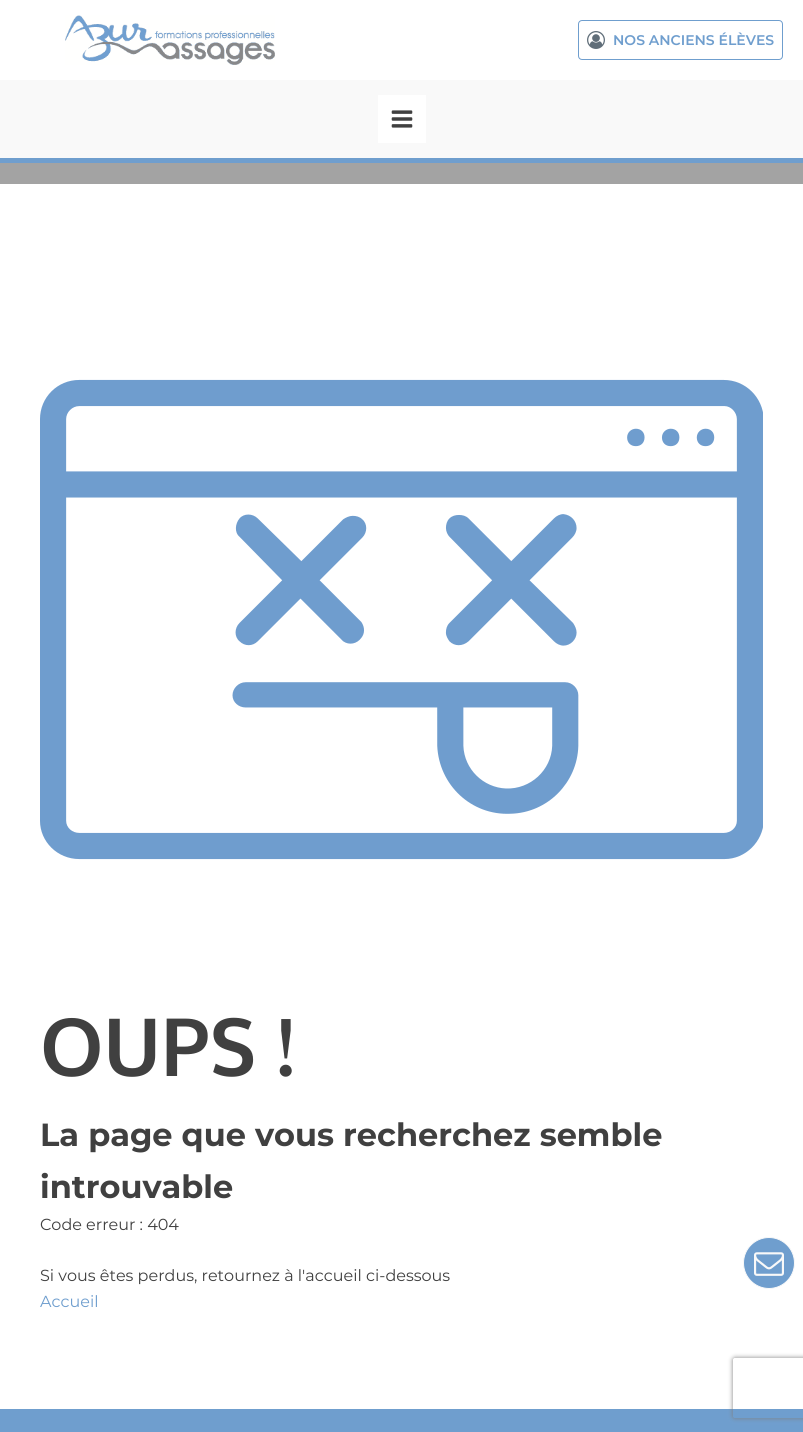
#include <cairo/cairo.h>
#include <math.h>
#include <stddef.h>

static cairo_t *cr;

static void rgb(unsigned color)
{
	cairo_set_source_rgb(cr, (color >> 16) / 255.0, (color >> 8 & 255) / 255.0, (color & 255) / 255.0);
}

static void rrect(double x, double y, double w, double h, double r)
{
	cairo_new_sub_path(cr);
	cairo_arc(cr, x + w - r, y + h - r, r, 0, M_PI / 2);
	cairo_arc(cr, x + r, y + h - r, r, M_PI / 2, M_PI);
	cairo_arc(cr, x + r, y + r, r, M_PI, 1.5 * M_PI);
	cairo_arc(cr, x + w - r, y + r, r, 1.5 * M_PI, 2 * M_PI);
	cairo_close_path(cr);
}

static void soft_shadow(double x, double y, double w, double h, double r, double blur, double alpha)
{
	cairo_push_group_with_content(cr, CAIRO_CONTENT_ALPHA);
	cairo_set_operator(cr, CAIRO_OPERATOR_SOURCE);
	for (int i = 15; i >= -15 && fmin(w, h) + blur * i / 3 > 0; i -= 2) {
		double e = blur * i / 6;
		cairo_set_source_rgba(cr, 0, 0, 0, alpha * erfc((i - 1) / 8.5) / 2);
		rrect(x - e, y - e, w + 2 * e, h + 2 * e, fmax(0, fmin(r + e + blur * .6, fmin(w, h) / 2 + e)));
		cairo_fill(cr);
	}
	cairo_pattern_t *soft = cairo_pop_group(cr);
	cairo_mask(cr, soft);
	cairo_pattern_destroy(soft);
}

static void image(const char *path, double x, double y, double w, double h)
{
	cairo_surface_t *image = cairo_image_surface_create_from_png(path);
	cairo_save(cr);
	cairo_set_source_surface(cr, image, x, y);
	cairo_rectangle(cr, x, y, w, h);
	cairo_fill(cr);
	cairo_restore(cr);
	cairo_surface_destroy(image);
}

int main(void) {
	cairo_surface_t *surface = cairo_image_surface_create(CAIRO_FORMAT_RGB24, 803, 1432);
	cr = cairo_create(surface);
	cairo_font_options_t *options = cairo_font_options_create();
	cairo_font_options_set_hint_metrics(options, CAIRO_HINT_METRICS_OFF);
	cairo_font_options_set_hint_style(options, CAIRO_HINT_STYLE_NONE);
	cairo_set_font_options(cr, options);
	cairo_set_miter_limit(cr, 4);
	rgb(0xffffff);
	cairo_paint(cr);
	rgb(0xa3a3a3);
	cairo_rectangle(cr, 0, 163, 803, 21);
	cairo_fill(cr);
	rgb(0x6f9ece);
	cairo_rectangle(cr, 0, 158, 803, 5);
	cairo_fill(cr);
	image("img/1.png", 65, 15, 210, 50);
	rrect(578.5, 20.5, 204, 39, 3.5);
	cairo_set_line_width(cr, 1);
	cairo_stroke(cr);
	image("img/2.png", 587, 31, 18, 18);
	rgb(0xf9f9f9);
	cairo_rectangle(cr, 0, 80, 803, 78);
	cairo_fill(cr);
	rgb(0xffffff);
	cairo_rectangle(cr, 378, 95, 48, 48);
	cairo_fill(cr);
	image("img/3.png", 391, 110, 22, 18);
	image("img/4.png", 40, 379, 723, 481);
	rgb(0x6f9ece);
	cairo_arc(cr, 769, 1263, 25.5, 0, 2 * M_PI);
	cairo_fill_preserve(cr);
	rgb(0xf9f9f9);
	cairo_stroke(cr);
	image("img/5.png", 754, 1252, 30, 24);
	rgb(0x6f9ece);
	cairo_rectangle(cr, 0, 1409, 803, 23);
	cairo_fill(cr);
	cairo_save(cr);
	cairo_set_fill_rule(cr, CAIRO_FILL_RULE_EVEN_ODD);
	cairo_new_path(cr);
	cairo_move_to(cr, 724, 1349);
	cairo_line_to(cr, 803, 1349);
	cairo_line_to(cr, 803, 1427);
	cairo_line_to(cr, 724, 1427);
	cairo_close_path(cr);
	cairo_move_to(cr, 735, 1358);
	cairo_line_to(cr, 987, 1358);
	cairo_curve_to(cr, 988, 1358, 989, 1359, 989, 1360);
	cairo_line_to(cr, 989, 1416);
	cairo_curve_to(cr, 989, 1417, 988, 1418, 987, 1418);
	cairo_line_to(cr, 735, 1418);
	cairo_curve_to(cr, 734, 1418, 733, 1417, 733, 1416);
	cairo_line_to(cr, 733, 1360);
	cairo_curve_to(cr, 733, 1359, 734, 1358, 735, 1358);
	cairo_close_path(cr);
	cairo_clip(cr);
	rgb(0x808080);
	soft_shadow(733, 1358, 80, 60, 2, 2.5, 1);
	cairo_restore(cr);
	cairo_select_font_face(cr, "Montserrat SemiBold", CAIRO_FONT_SLANT_NORMAL, CAIRO_FONT_WEIGHT_NORMAL);
	cairo_set_font_size(cr, 14);
	cairo_move_to(cr, 613, 45);
	cairo_show_text(cr, "NOS ANCIENS ÉLÈVES");
	cairo_select_font_face(cr, "Oxygen", CAIRO_FONT_SLANT_NORMAL, CAIRO_FONT_WEIGHT_BOLD);
	cairo_set_font_size(cr, 80);
	rgb(0x404040);
	cairo_move_to(cr, 40, 1076);
	cairo_show_text(cr, "OUPS !");
	cairo_select_font_face(cr, "Montserrat", CAIRO_FONT_SLANT_NORMAL, CAIRO_FONT_WEIGHT_BOLD);
	cairo_set_font_size(cr, 32);
	cairo_move_to(cr, 40, 1146);
	cairo_show_text(cr, "La page que vous recherchez semble");
	cairo_move_to(cr, 40, 1198);
	cairo_show_text(cr, "introuvable");
	cairo_select_font_face(cr, "Montserrat", CAIRO_FONT_SLANT_NORMAL, CAIRO_FONT_WEIGHT_NORMAL);
	cairo_set_font_size(cr, 16);
	cairo_move_to(cr, 40, 1230);
	cairo_show_text(cr, "Code erreur : 404");
	cairo_move_to(cr, 40, 1281);
	cairo_show_text(cr, "Si vous êtes perdus, retournez à l'accueil ci-dessous");
	rgb(0x6f9ece);
	cairo_move_to(cr, 40, 1307);
	cairo_show_text(cr, "Accueil");
	cairo_surface_write_to_png(surface, "page.png");
	cairo_font_options_destroy(options);
	cairo_destroy(cr);
	cairo_surface_destroy(surface);
	return 0;
}
